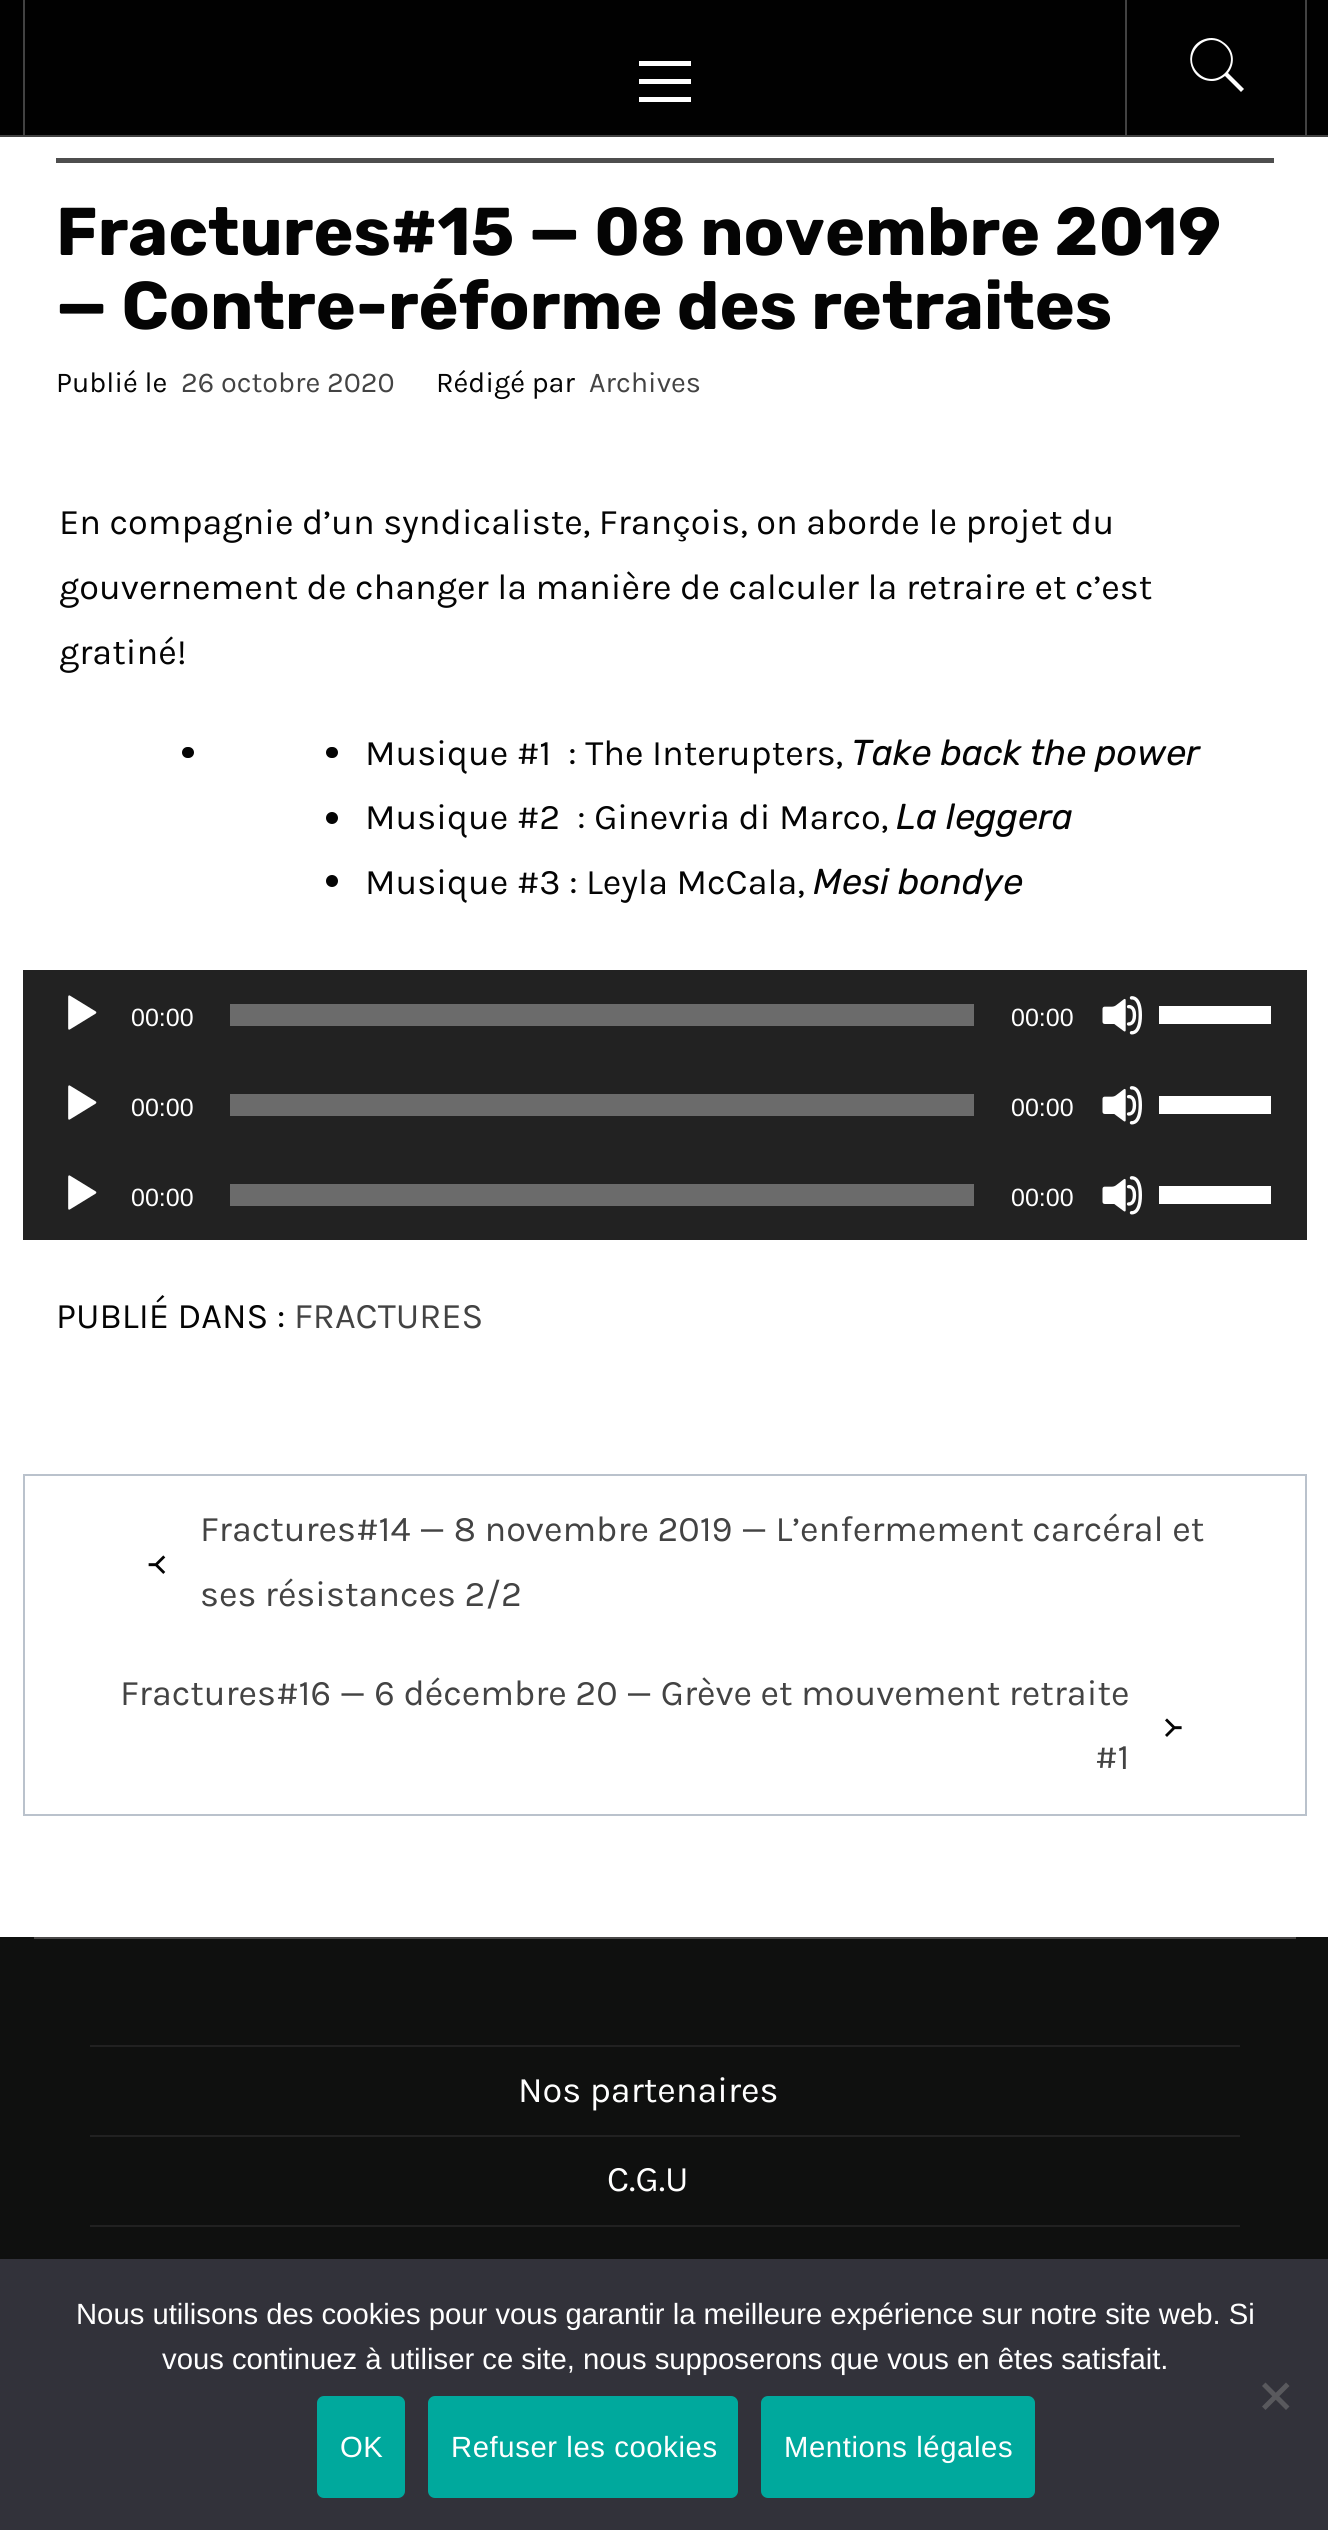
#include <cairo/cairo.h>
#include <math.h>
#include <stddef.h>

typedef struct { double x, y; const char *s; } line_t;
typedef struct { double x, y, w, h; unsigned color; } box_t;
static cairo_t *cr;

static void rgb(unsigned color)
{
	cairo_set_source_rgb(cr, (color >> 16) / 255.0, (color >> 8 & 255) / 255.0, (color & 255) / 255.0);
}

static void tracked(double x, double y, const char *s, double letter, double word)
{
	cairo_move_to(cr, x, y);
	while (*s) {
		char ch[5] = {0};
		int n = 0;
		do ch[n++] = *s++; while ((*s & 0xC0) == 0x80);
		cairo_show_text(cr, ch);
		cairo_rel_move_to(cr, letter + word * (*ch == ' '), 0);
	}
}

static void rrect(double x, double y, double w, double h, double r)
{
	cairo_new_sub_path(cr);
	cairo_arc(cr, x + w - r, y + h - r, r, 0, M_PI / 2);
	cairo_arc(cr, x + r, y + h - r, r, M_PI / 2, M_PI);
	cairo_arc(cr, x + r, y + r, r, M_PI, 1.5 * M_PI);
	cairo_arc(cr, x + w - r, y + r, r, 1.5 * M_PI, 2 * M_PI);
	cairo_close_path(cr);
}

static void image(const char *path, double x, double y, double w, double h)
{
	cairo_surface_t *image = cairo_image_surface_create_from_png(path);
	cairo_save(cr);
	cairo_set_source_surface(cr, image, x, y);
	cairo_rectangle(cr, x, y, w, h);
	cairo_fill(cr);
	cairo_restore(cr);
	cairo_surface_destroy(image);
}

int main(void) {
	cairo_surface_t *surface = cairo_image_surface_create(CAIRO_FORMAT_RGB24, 1328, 2530);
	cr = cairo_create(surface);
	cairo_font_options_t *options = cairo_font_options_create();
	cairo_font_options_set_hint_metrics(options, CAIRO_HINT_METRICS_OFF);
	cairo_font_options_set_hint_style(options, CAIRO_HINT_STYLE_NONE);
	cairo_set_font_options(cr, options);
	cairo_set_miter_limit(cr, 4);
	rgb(0xffffff);
	cairo_paint(cr);
	{
		static const box_t items[] = {
			{0, 0, 1328, 135, 0x010101},
			{0, 135, 1328, 2, 0x424242},
			{1305, 0, 2, 135, 0x424242},
			{23, 0, 2, 135, 0x424242},
			{639, 79, 52, 5, 0xffffff},
			{639, 61, 52, 5, 0xffffff},
			{639, 97, 52, 5, 0xffffff},
			{1125, 0, 2, 135, 0x424242},
		};
		for (size_t i = 0; i < sizeof items / sizeof *items; i++) {
			rgb(items[i].color);
			cairo_rectangle(cr, items[i].x, items[i].y, items[i].w, items[i].h);
			cairo_fill(cr);
		}
	}
	rgb(0xffffff);
	cairo_new_path(cr);
	cairo_move_to(cr, 1244, 89);
	cairo_line_to(cr, 1241, 92);
	cairo_line_to(cr, 1225, 76);
	cairo_curve_to(cr, 1221, 79, 1217, 81, 1212, 81);
	cairo_curve_to(cr, 1187, 81, 1182, 46, 1205, 39);
	cairo_curve_to(cr, 1211, 37, 1218, 38, 1223, 42);
	cairo_curve_to(cr, 1234, 49, 1236, 63, 1228, 73);
	cairo_close_path(cr);
	cairo_move_to(cr, 1198, 73);
	cairo_curve_to(cr, 1216, 91, 1243, 64, 1225, 46);
	cairo_curve_to(cr, 1207, 28, 1180, 55, 1198, 73);
	cairo_close_path(cr);
	cairo_fill(cr);
	rgb(0x4e4e4e);
	cairo_rectangle(cr, 56, 158, 1218, 5);
	cairo_fill(cr);
	rgb(0x040404);
	rrect(182, 747, 12, 11, 5.5);
	cairo_fill(cr);
	rrect(326, 747, 12, 11, 5.5);
	cairo_fill(cr);
	cairo_arc(cr, 332, 818, 6, 0, 2 * M_PI);
	cairo_fill(cr);
	cairo_arc(cr, 332, 881, 6, 0, 2 * M_PI);
	cairo_fill(cr);
	rgb(0x222222);
	cairo_rectangle(cr, 23, 970, 1284, 270);
	cairo_fill(cr);
	image("img/1.png", 68, 995, 29, 35);
	rgb(0x6b6b6b);
	cairo_rectangle(cr, 230, 1004, 744, 22);
	cairo_fill(cr);
	image("img/2.png", 1102, 996, 40, 39);
	rgb(0xffffff);
	cairo_rectangle(cr, 1159, 1006, 112, 18);
	cairo_fill(cr);
	image("img/1.png", 68, 1085, 29, 35);
	rgb(0x6b6b6b);
	cairo_rectangle(cr, 230, 1094, 744, 22);
	cairo_fill(cr);
	image("img/2.png", 1102, 1086, 40, 39);
	rgb(0xffffff);
	cairo_rectangle(cr, 1159, 1096, 112, 18);
	cairo_fill(cr);
	image("img/1.png", 68, 1175, 29, 35);
	rgb(0x6b6b6b);
	cairo_rectangle(cr, 230, 1184, 744, 22);
	cairo_fill(cr);
	image("img/2.png", 1102, 1176, 40, 39);
	rgb(0xffffff);
	cairo_rectangle(cr, 1159, 1186, 112, 18);
	cairo_fill(cr);
	cairo_rectangle(cr, 24, 1475, 1282, 340);
	rgb(0xbac2cc);
	cairo_stroke(cr);
	{
		static const box_t items[] = {
			{0, 1937, 1328, 322, 0x0f100f},
			{34, 1937, 1262, 2, 0x4a4848},
			{90, 2045, 1150, 2, 0x212121},
			{90, 2135, 1150, 2, 0x212121},
			{90, 2225, 1150, 2, 0x212121},
			{0, 2259, 1328, 271, 0x32323a},
		};
		for (size_t i = 0; i < sizeof items / sizeof *items; i++) {
			rgb(items[i].color);
			cairo_rectangle(cr, items[i].x, items[i].y, items[i].w, items[i].h);
			cairo_fill(cr);
		}
	}
	rgb(0x59595d);
	cairo_new_path(cr);
	cairo_move_to(cr, 1286, 2382.5);
	cairo_line_to(cr, 1289.5, 2386);
	cairo_line_to(cr, 1265.5, 2410);
	cairo_line_to(cr, 1262, 2406.5);
	cairo_close_path(cr);
	cairo_fill(cr);
	cairo_new_path(cr);
	cairo_move_to(cr, 1262, 2386);
	cairo_line_to(cr, 1265.5, 2382.5);
	cairo_line_to(cr, 1289.5, 2406.5);
	cairo_line_to(cr, 1286, 2410);
	cairo_close_path(cr);
	cairo_fill(cr);
	rgb(0x00a99d);
	rrect(317, 2396, 88, 102, 7);
	cairo_fill(cr);
	rrect(428, 2396, 310, 102, 7);
	cairo_fill(cr);
	rrect(761, 2396, 274, 102, 7);
	cairo_fill(cr);
	cairo_select_font_face(cr, "Rubik", CAIRO_FONT_SLANT_NORMAL, CAIRO_FONT_WEIGHT_BOLD);
	cairo_set_font_size(cr, 67.5);
	rgb(0x040404);
	cairo_move_to(cr, 56, 255);
	cairo_show_text(cr, "Fractures#15 — 08 novembre 2019");
	cairo_move_to(cr, 56, 329);
	cairo_show_text(cr, "— Contre-réforme des retraites");
	cairo_select_font_face(cr, "Karla", CAIRO_FONT_SLANT_NORMAL, CAIRO_FONT_WEIGHT_NORMAL);
	cairo_set_font_size(cr, 28.75);
	cairo_move_to(cr, 56, 392);
	cairo_show_text(cr, "Publié le");
	rgb(0x434343);
	cairo_move_to(cr, 181, 392);
	cairo_show_text(cr, "26 octobre 2020");
	rgb(0x040404);
	cairo_move_to(cr, 436, 392);
	cairo_show_text(cr, "Rédigé par");
	rgb(0x434343);
	cairo_move_to(cr, 589, 392);
	cairo_show_text(cr, "Archives");
	cairo_set_font_size(cr, 36);
	rgb(0x040404);
	{
		static const line_t items[] = {
			{59, 534, "En compagnie d’un syndicaliste, François, on aborde le projet du"},
			{59, 599, "gouvernement de changer la manière de calculer la retraire et c’est"},
			{59, 664, "gratiné!"},
			{365, 765, "Musique #1  : The Interupters,"},
		};
		for (size_t i = 0; i < sizeof items / sizeof *items; i++) {
			cairo_move_to(cr, items[i].x, items[i].y);
			cairo_show_text(cr, items[i].s);
		}
	}
	cairo_select_font_face(cr, "Rubik", CAIRO_FONT_SLANT_ITALIC, CAIRO_FONT_WEIGHT_NORMAL);
	cairo_move_to(cr, 851, 765);
	cairo_show_text(cr, "Take back the power");
	cairo_select_font_face(cr, "Karla", CAIRO_FONT_SLANT_NORMAL, CAIRO_FONT_WEIGHT_NORMAL);
	cairo_move_to(cr, 365, 829);
	cairo_show_text(cr, "Musique #2  : Ginevria di Marco,");
	cairo_select_font_face(cr, "Rubik", CAIRO_FONT_SLANT_ITALIC, CAIRO_FONT_WEIGHT_NORMAL);
	cairo_move_to(cr, 896, 829);
	cairo_show_text(cr, "La leggera");
	cairo_select_font_face(cr, "Karla", CAIRO_FONT_SLANT_NORMAL, CAIRO_FONT_WEIGHT_NORMAL);
	cairo_move_to(cr, 365, 894);
	cairo_show_text(cr, "Musique #3 : Leyla McCala,");
	cairo_select_font_face(cr, "Rubik", CAIRO_FONT_SLANT_ITALIC, CAIRO_FONT_WEIGHT_NORMAL);
	cairo_move_to(cr, 813, 894);
	cairo_show_text(cr, "Mesi bondye");
	cairo_select_font_face(cr, "Liberation Sans", CAIRO_FONT_SLANT_NORMAL, CAIRO_FONT_WEIGHT_NORMAL);
	cairo_set_font_size(cr, 25);
	rgb(0xffffff);
	{
		static const line_t items[] = {
			{131, 1026, "00:00"},
			{1011, 1026, "00:00"},
			{131, 1116, "00:00"},
			{1011, 1116, "00:00"},
			{131, 1206, "00:00"},
			{1011, 1206, "00:00"},
		};
		for (size_t i = 0; i < sizeof items / sizeof *items; i++) {
			cairo_move_to(cr, items[i].x, items[i].y);
			cairo_show_text(cr, items[i].s);
		}
	}
	cairo_select_font_face(cr, "Karla", CAIRO_FONT_SLANT_NORMAL, CAIRO_FONT_WEIGHT_NORMAL);
	cairo_set_font_size(cr, 36);
	rgb(0x040404);
	cairo_move_to(cr, 56, 1328);
	cairo_show_text(cr, "PUBLIÉ DANS :");
	rgb(0x434343);
	cairo_move_to(cr, 294, 1328);
	cairo_show_text(cr, "FRACTURES");
	cairo_select_font_face(cr, "DejaVu Sans", CAIRO_FONT_SLANT_NORMAL, CAIRO_FONT_WEIGHT_NORMAL);
	rgb(0x040404);
	cairo_move_to(cr, 149, 1575);
	cairo_show_text(cr, "᚜");
	cairo_select_font_face(cr, "Karla", CAIRO_FONT_SLANT_NORMAL, CAIRO_FONT_WEIGHT_NORMAL);
	rgb(0x434343);
	{
		static const line_t items[] = {
			{200, 1541, "Fractures#14 — 8 novembre 2019 — L’enfermement carcéral et"},
			{200, 1606, "ses résistances 2/2"},
			{120, 1705, "Fractures#16 — 6 décembre 20 — Grève et mouvement retraite"},
			{1095, 1769, "#1"},
		};
		for (size_t i = 0; i < sizeof items / sizeof *items; i++) {
			cairo_move_to(cr, items[i].x, items[i].y);
			cairo_show_text(cr, items[i].s);
		}
	}
	cairo_select_font_face(cr, "DejaVu Sans", CAIRO_FONT_SLANT_NORMAL, CAIRO_FONT_WEIGHT_NORMAL);
	rgb(0x040404);
	cairo_move_to(cr, 1163, 1738);
	cairo_show_text(cr, "᚛");
	cairo_select_font_face(cr, "Karla", CAIRO_FONT_SLANT_NORMAL, CAIRO_FONT_WEIGHT_NORMAL);
	rgb(0xffffff);
	cairo_move_to(cr, 518, 2102);
	cairo_show_text(cr, "Nos partenaires");
	cairo_move_to(cr, 607, 2191);
	cairo_show_text(cr, "C.G.U");
	cairo_select_font_face(cr, "Liberation Sans", CAIRO_FONT_SLANT_NORMAL, CAIRO_FONT_WEIGHT_NORMAL);
	cairo_set_font_size(cr, 29.25);
	cairo_move_to(cr, 76, 2324);
	cairo_show_text(cr, "Nous utilisons des cookies pour vous garantir la meilleure expérience sur notre site web. Si");
	cairo_move_to(cr, 162, 2369);
	cairo_show_text(cr, "vous continuez à utiliser ce site, nous supposerons que vous en êtes satisfait.");
	{
		static const line_t items[] = {
			{340, 2457, "OK"},
			{451, 2457, "Refuser les cookies"},
			{784, 2457, "Mentions légales"},
		};
		for (size_t i = 0; i < sizeof items / sizeof *items; i++) {
			tracked(items[i].x, items[i].y, items[i].s, 0.6, 0);
		}
	}
	cairo_surface_write_to_png(surface, "page.png");
	cairo_font_options_destroy(options);
	cairo_destroy(cr);
	cairo_surface_destroy(surface);
	return 0;
}
